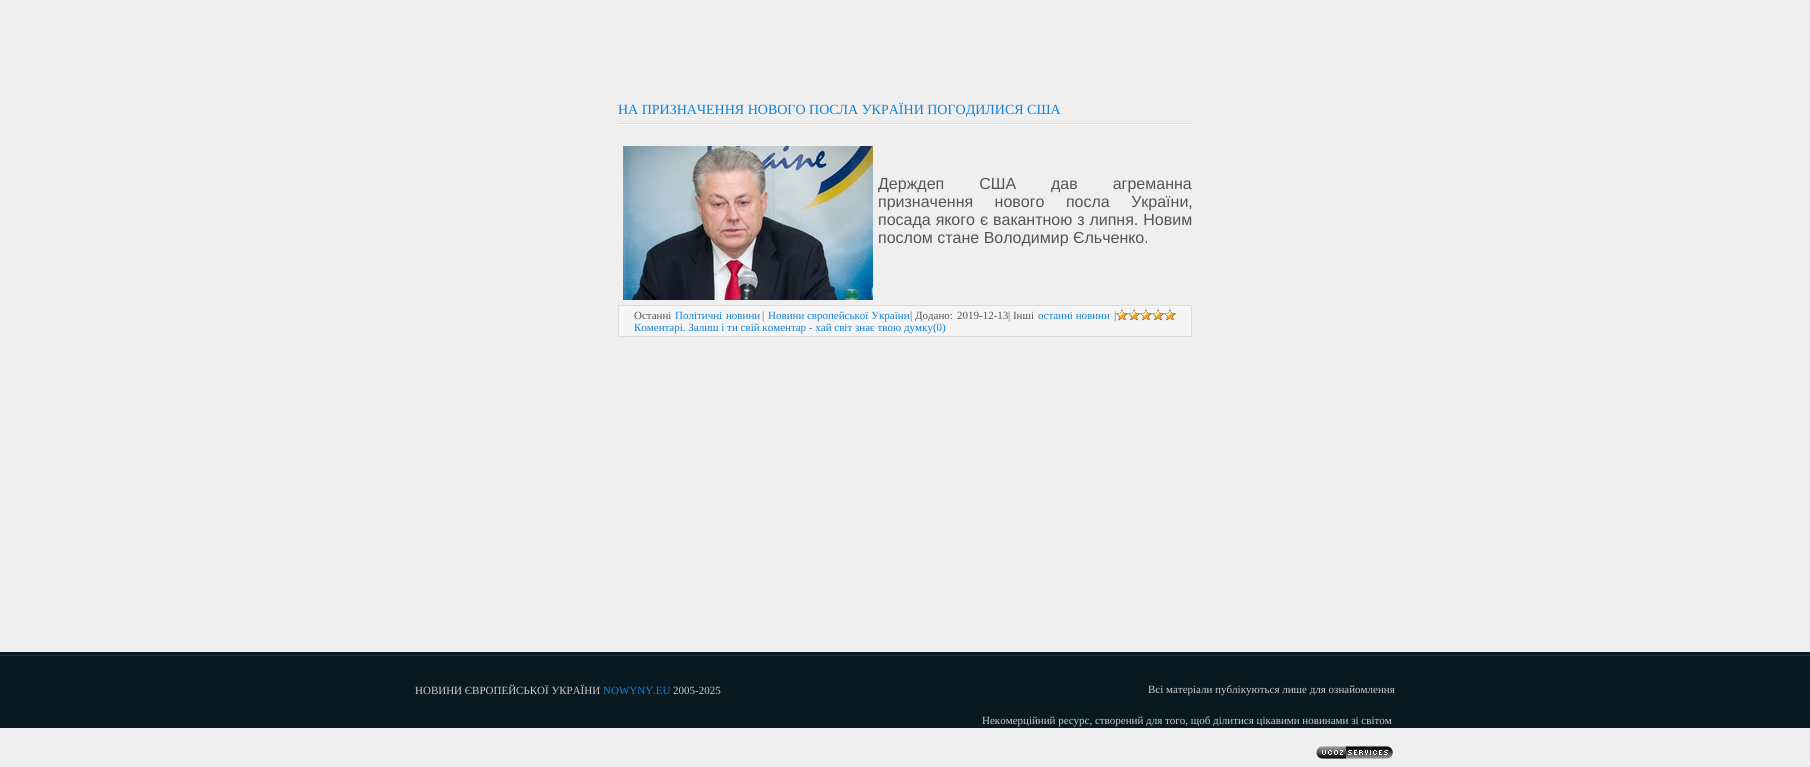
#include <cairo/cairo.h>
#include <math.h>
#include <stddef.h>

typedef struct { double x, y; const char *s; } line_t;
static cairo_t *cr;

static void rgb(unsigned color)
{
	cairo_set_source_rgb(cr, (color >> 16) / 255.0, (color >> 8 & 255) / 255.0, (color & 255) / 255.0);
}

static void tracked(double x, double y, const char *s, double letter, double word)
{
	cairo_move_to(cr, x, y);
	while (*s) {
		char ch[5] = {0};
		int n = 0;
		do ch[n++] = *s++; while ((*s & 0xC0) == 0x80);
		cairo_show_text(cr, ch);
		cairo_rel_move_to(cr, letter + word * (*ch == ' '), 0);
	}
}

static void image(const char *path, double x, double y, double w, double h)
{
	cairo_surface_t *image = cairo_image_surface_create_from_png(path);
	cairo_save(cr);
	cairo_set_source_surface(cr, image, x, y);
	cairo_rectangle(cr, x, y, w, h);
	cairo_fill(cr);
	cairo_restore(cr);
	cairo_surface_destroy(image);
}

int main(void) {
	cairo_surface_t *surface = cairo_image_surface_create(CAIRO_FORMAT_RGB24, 1810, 767);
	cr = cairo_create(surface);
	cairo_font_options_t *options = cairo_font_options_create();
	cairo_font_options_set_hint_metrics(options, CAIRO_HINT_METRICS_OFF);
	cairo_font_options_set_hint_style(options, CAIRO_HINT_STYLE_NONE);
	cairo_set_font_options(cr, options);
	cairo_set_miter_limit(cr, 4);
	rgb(0xefefef);
	cairo_paint(cr);
	image("img/1.png", 618, 123, 574, 2);
	image("img/2.png", 623, 146, 250, 154);
	rgb(0xf5f5f5);
	cairo_rectangle(cr, 618.5, 305.5, 573, 31);
	cairo_fill_preserve(cr);
	rgb(0xdcdbe0);
	cairo_set_line_width(cr, 1);
	cairo_stroke(cr);
	image("img/3.png", 1116, 309, 60, 12);
	image("img/4.png", 1116, 309, 60, 12);
	image("img/5.png", 0, 652, 1810, 76);
	image("img/6.png", 1316, 746, 77, 13);
	cairo_select_font_face(cr, "Liberation Serif", CAIRO_FONT_SLANT_NORMAL, CAIRO_FONT_WEIGHT_NORMAL);
	cairo_set_font_size(cr, 14);
	rgb(0x1282d8);
	cairo_move_to(cr, 618, 114);
	cairo_show_text(cr, "НА ПРИЗНАЧЕННЯ НОВОГО ПОСЛА УКРАЇНИ ПОГОДИЛИСЯ США");
	cairo_select_font_face(cr, "Liberation Sans", CAIRO_FONT_SLANT_NORMAL, CAIRO_FONT_WEIGHT_NORMAL);
	cairo_set_font_size(cr, 16);
	rgb(0x555555);
	tracked(878, 189, "Держдеп США дав агреманна", 0, 30.5);
	tracked(878, 207, "призначення нового посла України,", 0, 17);
	tracked(878, 225, "посада якого є вакантною з липня. Новим", 0, 0.5);
	cairo_move_to(cr, 878, 243);
	cairo_show_text(cr, "послом стане Володимир Єльченко.");
	cairo_select_font_face(cr, "Liberation Serif", CAIRO_FONT_SLANT_NORMAL, CAIRO_FONT_WEIGHT_NORMAL);
	cairo_set_font_size(cr, 11);
	cairo_move_to(cr, 634, 319);
	cairo_show_text(cr, "Останні");
	rgb(0x1282d8);
	tracked(675, 319, "Політичні новини", 0, 1);
	rgb(0x555555);
	cairo_move_to(cr, 762, 319);
	cairo_show_text(cr, "|");
	rgb(0x1282d8);
	cairo_move_to(cr, 768, 319);
	cairo_show_text(cr, "Новини європейської України");
	rgb(0x555555);
	{
		static const line_t items[] = {
			{910, 319, "| Додано:"},
			{957, 319, "2019-12-13"},
			{1008, 319, "| Інші"},
		};
		for (size_t i = 0; i < sizeof items / sizeof *items; i++) {
			cairo_move_to(cr, items[i].x, items[i].y);
			cairo_show_text(cr, items[i].s);
		}
	}
	rgb(0x1282d8);
	cairo_move_to(cr, 1038, 319);
	cairo_show_text(cr, "останні новини");
	rgb(0x555555);
	cairo_move_to(cr, 1114, 319);
	cairo_show_text(cr, "|");
	rgb(0x1282d8);
	cairo_move_to(cr, 634, 331);
	cairo_show_text(cr, "Коментарі. Залиш і ти свій коментар - хай світ знає твою думку(0)");
	rgb(0xcccccc);
	cairo_move_to(cr, 415, 694);
	cairo_show_text(cr, "НОВИНИ ЄВРОПЕЙСЬКОЇ УКРАЇНИ");
	rgb(0x1282d8);
	cairo_move_to(cr, 603, 694);
	cairo_show_text(cr, "NOWYNY.EU");
	rgb(0xcccccc);
	{
		static const line_t items[] = {
			{673, 694, "2005-2025"},
			{1148, 693, "Всі матеріали публікуються лише для ознайомлення"},
			{982, 724, "Некомерційний ресурс, створений для того, щоб ділитися цікавими новинами зі світом"},
		};
		for (size_t i = 0; i < sizeof items / sizeof *items; i++) {
			cairo_move_to(cr, items[i].x, items[i].y);
			cairo_show_text(cr, items[i].s);
		}
	}
	cairo_surface_write_to_png(surface, "page.png");
	cairo_font_options_destroy(options);
	cairo_destroy(cr);
	cairo_surface_destroy(surface);
	return 0;
}
